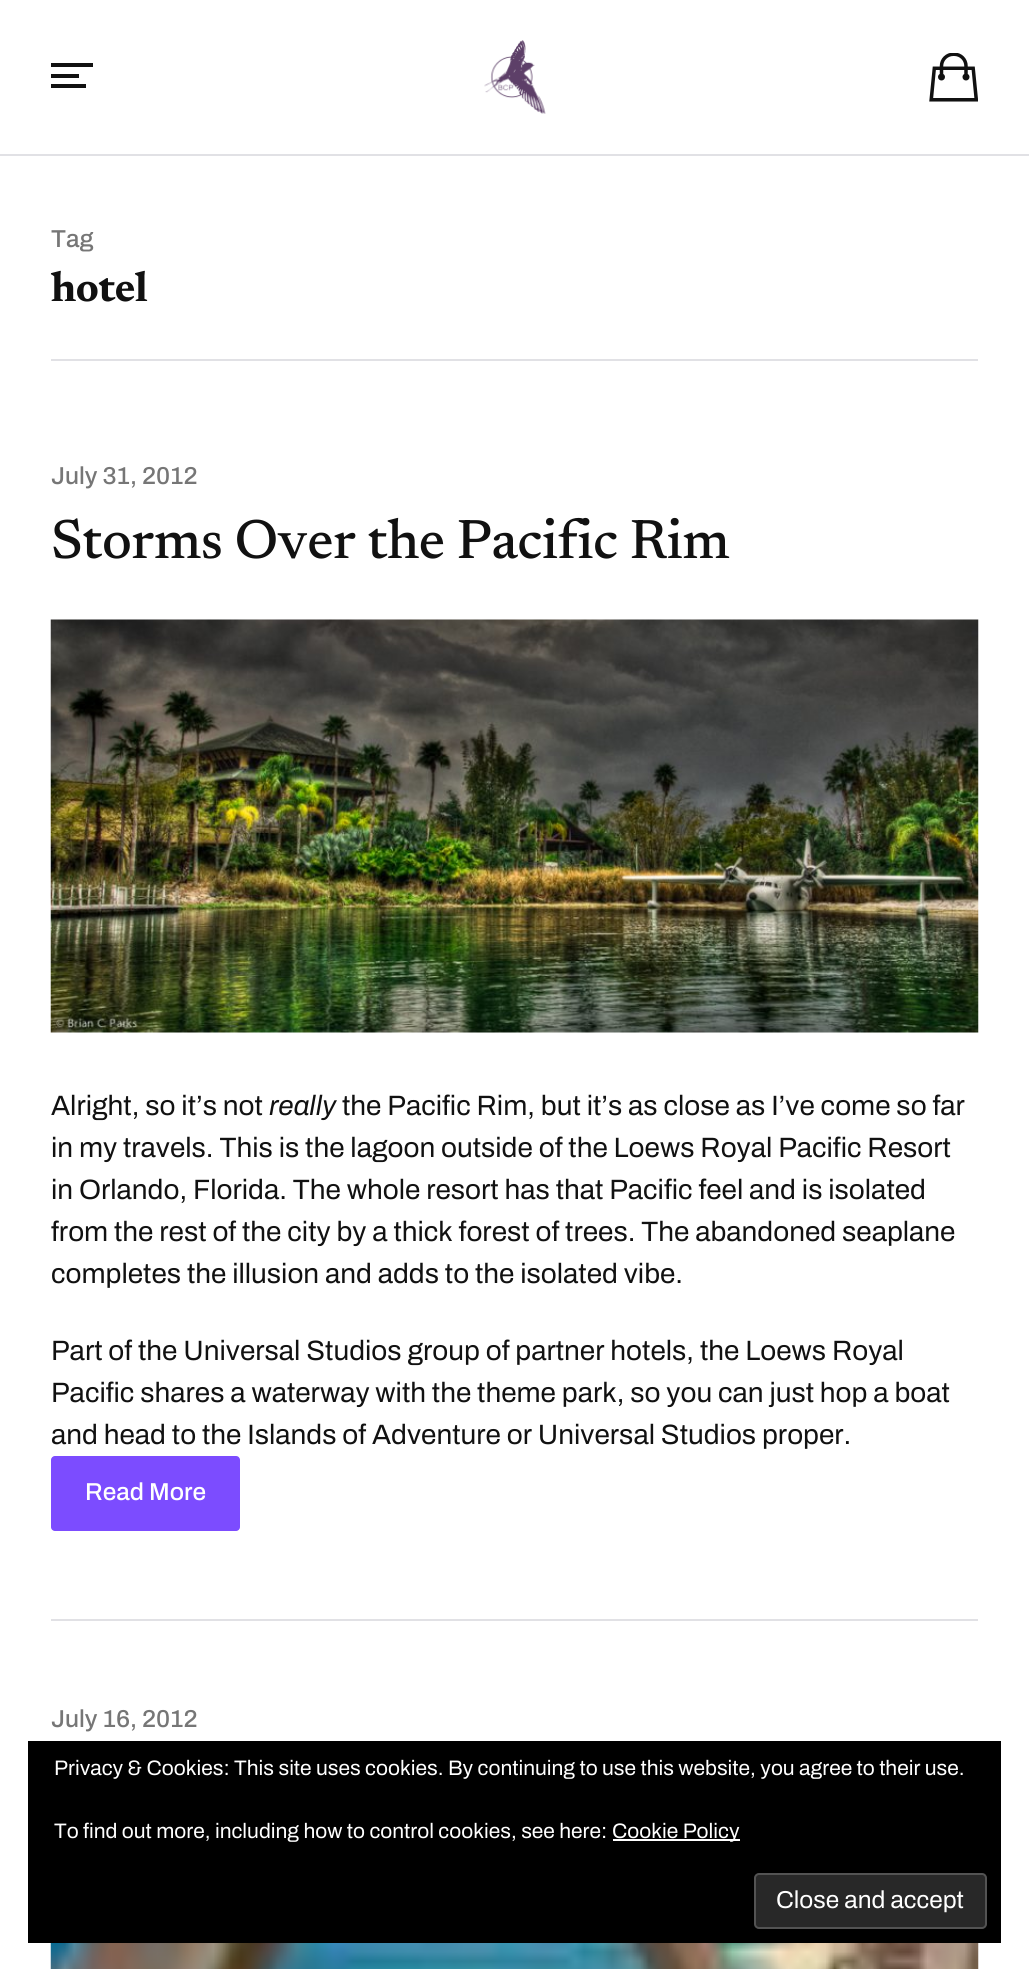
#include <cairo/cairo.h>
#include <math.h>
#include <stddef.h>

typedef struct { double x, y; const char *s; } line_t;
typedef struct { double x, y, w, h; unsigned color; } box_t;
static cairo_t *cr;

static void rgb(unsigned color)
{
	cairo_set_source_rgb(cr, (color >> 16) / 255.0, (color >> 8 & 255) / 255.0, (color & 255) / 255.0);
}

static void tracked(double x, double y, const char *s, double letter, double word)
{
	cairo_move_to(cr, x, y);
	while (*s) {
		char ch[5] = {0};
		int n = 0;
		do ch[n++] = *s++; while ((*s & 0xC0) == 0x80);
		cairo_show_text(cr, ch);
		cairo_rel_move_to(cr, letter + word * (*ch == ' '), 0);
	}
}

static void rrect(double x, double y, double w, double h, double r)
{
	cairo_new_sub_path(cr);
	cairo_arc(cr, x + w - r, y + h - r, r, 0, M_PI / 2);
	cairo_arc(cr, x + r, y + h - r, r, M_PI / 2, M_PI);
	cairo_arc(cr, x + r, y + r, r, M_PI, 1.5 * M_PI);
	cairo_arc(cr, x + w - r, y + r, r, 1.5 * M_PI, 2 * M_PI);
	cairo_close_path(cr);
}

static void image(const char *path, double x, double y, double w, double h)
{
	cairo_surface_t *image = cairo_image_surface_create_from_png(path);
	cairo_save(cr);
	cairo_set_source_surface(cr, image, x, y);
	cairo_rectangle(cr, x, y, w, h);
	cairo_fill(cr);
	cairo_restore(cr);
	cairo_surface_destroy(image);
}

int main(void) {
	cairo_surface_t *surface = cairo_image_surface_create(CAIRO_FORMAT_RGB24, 1029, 1969);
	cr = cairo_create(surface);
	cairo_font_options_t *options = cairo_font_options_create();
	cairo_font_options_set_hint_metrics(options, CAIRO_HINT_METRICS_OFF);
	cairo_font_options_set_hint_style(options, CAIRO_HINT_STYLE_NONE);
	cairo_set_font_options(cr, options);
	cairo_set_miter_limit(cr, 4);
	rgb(0xffffff);
	cairo_paint(cr);
	{
		static const box_t items[] = {
			{0, 154, 1029, 2, 0xe1e1e5},
			{51, 63, 42, 4, 0x111111},
			{51, 74, 28, 4, 0x111111},
			{51, 84, 35, 4, 0x111111},
		};
		for (size_t i = 0; i < sizeof items / sizeof *items; i++) {
			rgb(items[i].color);
			cairo_rectangle(cr, items[i].x, items[i].y, items[i].w, items[i].h);
			cairo_fill(cr);
		}
	}
	image("img/1.png", 484, 40, 62, 74);
	image("img/2.png", 929, 53, 49, 49);
	rgb(0xe1e1e5);
	cairo_rectangle(cr, 51, 359, 927, 2);
	cairo_fill(cr);
	image("img/3.png", 50, 619, 929, 414);
	rgb(0x7c4cff);
	rrect(51, 1456, 189, 75, 4);
	cairo_fill(cr);
	rgb(0xe1e1e5);
	cairo_rectangle(cr, 51, 1619, 927, 2);
	cairo_fill(cr);
	image("img/4.png", 50, 1943, 929, 26);
	rgb(0x000000);
	cairo_rectangle(cr, 28, 1741, 973, 202);
	cairo_fill(cr);
	rgb(0xffffff);
	cairo_rectangle(cr, 613, 1839, 127, 2);
	cairo_fill(cr);
	rgb(0x282828);
	rrect(755, 1874, 231, 54, 4);
	cairo_fill_preserve(cr);
	rgb(0x535353);
	cairo_stroke(cr);
	cairo_select_font_face(cr, "Archivo SemiBold", CAIRO_FONT_SLANT_NORMAL, CAIRO_FONT_WEIGHT_NORMAL);
	cairo_set_font_size(cr, 24.5);
	rgb(0x767676);
	cairo_move_to(cr, 51, 247);
	cairo_show_text(cr, "Tag");
	cairo_select_font_face(cr, "Newsreader", CAIRO_FONT_SLANT_NORMAL, CAIRO_FONT_WEIGHT_BOLD);
	cairo_set_font_size(cr, 42);
	rgb(0x111111);
	tracked(51, 301, "hotel", -0.5, 0);
	cairo_select_font_face(cr, "Archivo SemiBold", CAIRO_FONT_SLANT_NORMAL, CAIRO_FONT_WEIGHT_NORMAL);
	cairo_set_font_size(cr, 24.5);
	rgb(0x767676);
	cairo_move_to(cr, 51, 484);
	cairo_show_text(cr, "July 31, 2012");
	cairo_select_font_face(cr, "Newsreader Medium", CAIRO_FONT_SLANT_NORMAL, CAIRO_FONT_WEIGHT_NORMAL);
	cairo_set_font_size(cr, 56);
	rgb(0x111111);
	tracked(51, 558, "Storms Over the Pacific Rim", -0.55, 0);
	cairo_select_font_face(cr, "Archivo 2 SemiBold", CAIRO_FONT_SLANT_NORMAL, CAIRO_FONT_WEIGHT_NORMAL);
	cairo_set_font_size(cr, 28);
	cairo_move_to(cr, 51, 1115);
	cairo_show_text(cr, "Alright, so it’s not");
	cairo_select_font_face(cr, "Archivo SemiBold", CAIRO_FONT_SLANT_ITALIC, CAIRO_FONT_WEIGHT_NORMAL);
	cairo_move_to(cr, 269, 1115);
	cairo_show_text(cr, "really");
	cairo_select_font_face(cr, "Archivo 2 SemiBold", CAIRO_FONT_SLANT_NORMAL, CAIRO_FONT_WEIGHT_NORMAL);
	{
		static const line_t items[] = {
			{342, 1115, "the Pacific Rim, but it’s as close as I’ve come so far"},
			{51, 1157, "in my travels. This is the lagoon outside of the Loews Royal Pacific Resort"},
			{51, 1199, "in Orlando, Florida. The whole resort has that Pacific feel and is isolated"},
			{51, 1241, "from the rest of the city by a thick forest of trees. The abandoned seaplane"},
			{51, 1283, "completes the illusion and adds to the isolated vibe."},
			{51, 1360, "Part of the Universal Studios group of partner hotels, the Loews Royal"},
			{51, 1402, "Pacific shares a waterway with the theme park, so you can just hop a boat"},
			{51, 1444, "and head to the Islands of Adventure or Universal Studios proper."},
		};
		for (size_t i = 0; i < sizeof items / sizeof *items; i++) {
			cairo_move_to(cr, items[i].x, items[i].y);
			cairo_show_text(cr, items[i].s);
		}
	}
	cairo_select_font_face(cr, "Archivo SemiBold", CAIRO_FONT_SLANT_NORMAL, CAIRO_FONT_WEIGHT_NORMAL);
	cairo_set_font_size(cr, 24.5);
	rgb(0xffffff);
	cairo_move_to(cr, 85, 1500);
	cairo_show_text(cr, "Read More");
	rgb(0x767676);
	cairo_move_to(cr, 51, 1727);
	cairo_show_text(cr, "July 16, 2012");
	cairo_select_font_face(cr, "Archivo 2 SemiBold", CAIRO_FONT_SLANT_NORMAL, CAIRO_FONT_WEIGHT_NORMAL);
	cairo_set_font_size(cr, 21);
	rgb(0xffffff);
	{
		static const line_t items[] = {
			{54, 1775, "Privacy & Cookies: This site uses cookies. By continuing to use this website, you agree to their use."},
			{54, 1838, "To find out more, including how to control cookies, see here:"},
			{612, 1838, "Cookie Policy"},
		};
		for (size_t i = 0; i < sizeof items / sizeof *items; i++) {
			cairo_move_to(cr, items[i].x, items[i].y);
			cairo_show_text(cr, items[i].s);
		}
	}
	cairo_set_font_size(cr, 24.5);
	cairo_move_to(cr, 776, 1908);
	cairo_show_text(cr, "Close and accept");
	cairo_surface_write_to_png(surface, "page.png");
	cairo_font_options_destroy(options);
	cairo_destroy(cr);
	cairo_surface_destroy(surface);
	return 0;
}
